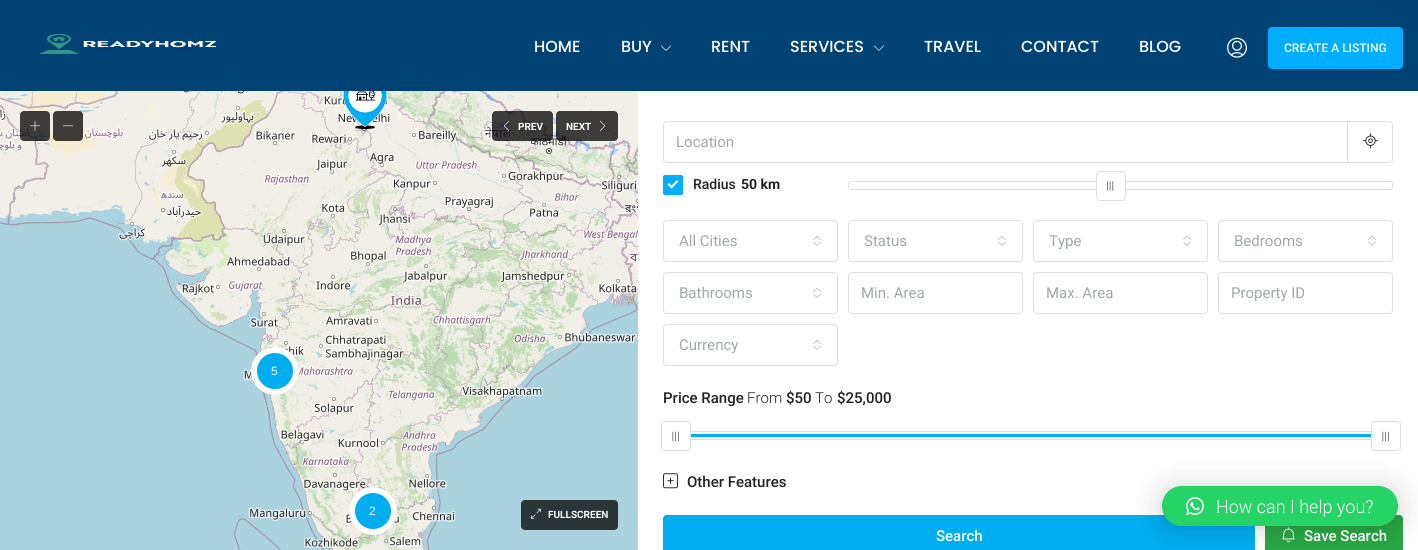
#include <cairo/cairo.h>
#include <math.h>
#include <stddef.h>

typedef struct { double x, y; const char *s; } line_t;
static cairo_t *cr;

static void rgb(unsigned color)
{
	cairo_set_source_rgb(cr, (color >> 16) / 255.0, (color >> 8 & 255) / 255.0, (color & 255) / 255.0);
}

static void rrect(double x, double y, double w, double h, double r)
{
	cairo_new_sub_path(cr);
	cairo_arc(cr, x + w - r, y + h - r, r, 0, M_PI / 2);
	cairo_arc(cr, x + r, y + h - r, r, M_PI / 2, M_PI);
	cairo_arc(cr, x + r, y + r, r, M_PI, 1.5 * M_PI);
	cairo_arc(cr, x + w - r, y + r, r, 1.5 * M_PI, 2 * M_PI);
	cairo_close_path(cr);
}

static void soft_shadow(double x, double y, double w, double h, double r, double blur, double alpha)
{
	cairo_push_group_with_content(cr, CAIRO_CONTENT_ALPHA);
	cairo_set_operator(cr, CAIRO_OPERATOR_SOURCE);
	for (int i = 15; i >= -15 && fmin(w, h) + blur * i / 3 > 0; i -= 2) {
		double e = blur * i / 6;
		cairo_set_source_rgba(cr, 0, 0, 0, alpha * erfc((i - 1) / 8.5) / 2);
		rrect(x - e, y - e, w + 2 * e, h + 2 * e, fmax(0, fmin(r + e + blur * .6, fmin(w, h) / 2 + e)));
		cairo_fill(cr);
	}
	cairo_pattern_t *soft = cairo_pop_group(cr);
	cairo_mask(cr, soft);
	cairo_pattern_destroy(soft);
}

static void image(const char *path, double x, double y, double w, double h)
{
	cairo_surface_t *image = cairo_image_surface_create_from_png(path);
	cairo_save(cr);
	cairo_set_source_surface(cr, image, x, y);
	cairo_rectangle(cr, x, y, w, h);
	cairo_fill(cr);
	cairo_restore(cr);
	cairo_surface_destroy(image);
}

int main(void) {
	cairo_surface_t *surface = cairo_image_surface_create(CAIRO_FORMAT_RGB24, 1418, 550);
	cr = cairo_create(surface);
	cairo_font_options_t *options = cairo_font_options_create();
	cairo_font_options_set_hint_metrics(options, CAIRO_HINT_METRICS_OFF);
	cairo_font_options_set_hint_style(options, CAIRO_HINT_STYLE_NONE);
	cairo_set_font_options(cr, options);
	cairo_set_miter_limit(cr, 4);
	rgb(0xffffff);
	cairo_paint(cr);
	rgb(0x004274);
	cairo_rectangle(cr, 0, 0, 1418, 91);
	cairo_fill(cr);
	image("img/1.png", 39, 34, 178, 20);
	image("img/2.png", 661, 45, 10, 6);
	image("img/2.png", 874, 45, 10, 6);
	image("img/3.png", 1227, 37, 20, 21);
	rgb(0x00aeff);
	rrect(1268.5, 27.5, 134, 41, 3.5);
	cairo_fill_preserve(cr);
	cairo_set_line_width(cr, 1);
	cairo_stroke(cr);
	image("img/8.png", 0, 91, 143, 205);
	cairo_set_source_rgba(cr, 0, 0, 0, 0.75);
	rrect(20, 111, 30, 30, 4);
	cairo_fill(cr);
	image("img/4.png", 30, 120, 10, 11);
	rrect(53, 111, 30, 30, 4);
	cairo_fill(cr);
	image("img/5.png", 63, 125, 10, 2);
	image("img/10.png", 399, 91, 239, 205);
	rrect(492, 111, 61, 30, 4);
	cairo_fill(cr);
	image("img/6.png", 503, 120, 6, 11);
	rrect(556, 111, 62, 30, 4);
	cairo_fill(cr);
	image("img/7.png", 600, 120, 6, 11);
	image("img/9.png", 143, 91, 256, 205);
	rgb(0xaad3df);
	cairo_rectangle(cr, 0, 296, 143, 254);
	cairo_fill(cr);
	image("img/11.png", 143, 296, 256, 254);
	image("img/12.png", 399, 296, 239, 254);
	image("img/13.png", 343, 91, 44, 38);
	image("img/14.png", 251, 347, 48, 48);
	image("img/15.png", 349, 487, 48, 48);
	rgb(0x2b3538);
	rrect(521, 500, 97, 30, 4);
	cairo_fill(cr);
	image("img/16.png", 531, 508, 10, 11);
	rrect(663.5, 121.5, 729, 41, 3.5);
	rgb(0xdce0e0);
	cairo_stroke(cr);
	cairo_rectangle(cr, 1347, 121, 1, 42);
	cairo_fill(cr);
	image("img/17.png", 1363, 133, 15, 16);
	rgb(0x00aeff);
	rrect(663.5, 175.5, 19, 19, 1.5);
	cairo_fill_preserve(cr);
	cairo_stroke(cr);
	rgb(0xffffff);
	cairo_new_path(cr);
	cairo_move_to(cr, 677, 180);
	cairo_line_to(cr, 678.5, 181.5);
	cairo_line_to(cr, 671.5, 188.5);
	cairo_line_to(cr, 670, 187);
	cairo_close_path(cr);
	cairo_fill(cr);
	cairo_new_path(cr);
	cairo_move_to(cr, 669, 183);
	cairo_line_to(cr, 673, 187);
	cairo_line_to(cr, 671.5, 188.5);
	cairo_line_to(cr, 667.5, 184.5);
	cairo_close_path(cr);
	cairo_fill(cr);
	rrect(848.5, 181.5, 544, 8, 2.5);
	rgb(0xdce0e0);
	cairo_stroke(cr);
	rgb(0xffffff);
	rrect(1096.5, 171.5, 29, 29, 3.5);
	cairo_fill_preserve(cr);
	rgb(0xdce0e0);
	cairo_stroke(cr);
	image("img/18.png", 1107, 181, 7, 10);
	rrect(663.5, 220.5, 174, 41, 3.5);
	cairo_stroke(cr);
	image("img/19.png", 813, 236, 8, 10);
	rrect(848.5, 220.5, 174, 41, 3.5);
	cairo_stroke(cr);
	image("img/19.png", 998, 236, 8, 10);
	rrect(1033.5, 220.5, 174, 41, 3.5);
	cairo_stroke(cr);
	image("img/19.png", 1183, 236, 8, 10);
	rrect(1218.5, 220.5, 174, 41, 3.5);
	cairo_stroke(cr);
	image("img/19.png", 1368, 236, 8, 10);
	rrect(663.5, 272.5, 174, 41, 3.5);
	cairo_stroke(cr);
	image("img/19.png", 813, 288, 8, 10);
	rrect(848.5, 272.5, 174, 41, 3.5);
	cairo_stroke(cr);
	rrect(1033.5, 272.5, 174, 41, 3.5);
	cairo_stroke(cr);
	rrect(1218.5, 272.5, 174, 41, 3.5);
	cairo_stroke(cr);
	rrect(663.5, 324.5, 174, 41, 3.5);
	cairo_stroke(cr);
	image("img/19.png", 813, 340, 8, 10);
	cairo_rectangle(cr, 669.5, 431.5, 727, 8);
	cairo_stroke(cr);
	rgb(0xffffff);
	rrect(661.5, 421.5, 29, 29, 3.5);
	cairo_fill_preserve(cr);
	rgb(0xdce0e0);
	cairo_stroke(cr);
	image("img/20.png", 672, 431, 7, 11);
	rgb(0x00aeff);
	cairo_rectangle(cr, 691, 434, 680, 3);
	cairo_fill(cr);
	rgb(0xffffff);
	rrect(1371.5, 421.5, 29, 29, 3.5);
	cairo_fill_preserve(cr);
	rgb(0xdce0e0);
	cairo_stroke(cr);
	image("img/20.png", 1382, 431, 7, 11);
	image("img/21.png", 663, 473, 15, 16);
	rgb(0x00aeef);
	cairo_new_path(cr);
	cairo_move_to(cr, 667, 515);
	cairo_line_to(cr, 1251, 515);
	cairo_curve_to(cr, 1253, 515, 1255, 517, 1255, 519);
	cairo_line_to(cr, 1255, 550);
	cairo_line_to(cr, 663, 550);
	cairo_line_to(cr, 663, 519);
	cairo_curve_to(cr, 663, 517, 665, 515, 667, 515);
	cairo_close_path(cr);
	cairo_fill(cr);
	rrect(663.5, 515.5, 591, 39, 3.5);
	cairo_stroke(cr);
	rgb(0x28a745);
	cairo_new_path(cr);
	cairo_move_to(cr, 1269, 515);
	cairo_line_to(cr, 1399, 515);
	cairo_curve_to(cr, 1401, 515, 1403, 517, 1403, 519);
	cairo_line_to(cr, 1403, 550);
	cairo_line_to(cr, 1265, 550);
	cairo_line_to(cr, 1265, 519);
	cairo_curve_to(cr, 1265, 517, 1267, 515, 1269, 515);
	cairo_close_path(cr);
	cairo_fill(cr);
	rrect(1265.5, 515.5, 137, 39, 3.5);
	cairo_stroke(cr);
	image("img/22.png", 1282, 527, 13, 16);
	rgb(0x000000);
	soft_shadow(1162, 488, 236, 40, 20, 16, 0.16);
	soft_shadow(1162, 487, 236, 40, 20, 3, 0.06);
	rgb(0x25d366);
	rrect(1162, 486, 236, 40, 20);
	cairo_fill(cr);
	image("img/23.png", 1186, 497, 18, 19);
	cairo_select_font_face(cr, "Poppins Medium", CAIRO_FONT_SLANT_NORMAL, CAIRO_FONT_WEIGHT_NORMAL);
	cairo_set_font_size(cr, 16);
	rgb(0xffffff);
	{
		static const line_t items[] = {
			{534, 52, "HOME"},
			{621, 52, "BUY"},
			{711, 52, "RENT"},
			{790, 52, "SERVICES"},
			{924, 52, "TRAVEL"},
			{1021, 52, "CONTACT"},
			{1139, 52, "BLOG"},
		};
		for (size_t i = 0; i < sizeof items / sizeof *items; i++) {
			cairo_move_to(cr, items[i].x, items[i].y);
			cairo_show_text(cr, items[i].s);
		}
	}
	cairo_select_font_face(cr, "Roboto Medium", CAIRO_FONT_SLANT_NORMAL, CAIRO_FONT_WEIGHT_NORMAL);
	cairo_set_font_size(cr, 12);
	cairo_move_to(cr, 1284, 52);
	cairo_show_text(cr, "CREATE A LISTING");
	cairo_select_font_face(cr, "Roboto", CAIRO_FONT_SLANT_NORMAL, CAIRO_FONT_WEIGHT_BOLD);
	cairo_set_font_size(cr, 10);
	cairo_move_to(cr, 518, 130);
	cairo_show_text(cr, "PREV");
	cairo_move_to(cr, 566, 130);
	cairo_show_text(cr, "NEXT");
	cairo_select_font_face(cr, "Liberation Sans", CAIRO_FONT_SLANT_NORMAL, CAIRO_FONT_WEIGHT_NORMAL);
	cairo_set_font_size(cr, 12);
	cairo_move_to(cr, 271, 375);
	cairo_show_text(cr, "5");
	cairo_move_to(cr, 369, 515);
	cairo_show_text(cr, "2");
	cairo_select_font_face(cr, "Roboto", CAIRO_FONT_SLANT_NORMAL, CAIRO_FONT_WEIGHT_BOLD);
	cairo_set_font_size(cr, 10);
	cairo_move_to(cr, 548, 518);
	cairo_show_text(cr, "FULLSCREEN");
	cairo_select_font_face(cr, "Roboto", CAIRO_FONT_SLANT_NORMAL, CAIRO_FONT_WEIGHT_NORMAL);
	cairo_set_font_size(cr, 15);
	rgb(0xa1a7a8);
	cairo_move_to(cr, 676, 147);
	cairo_show_text(cr, "Location");
	cairo_select_font_face(cr, "Roboto Medium", CAIRO_FONT_SLANT_NORMAL, CAIRO_FONT_WEIGHT_NORMAL);
	cairo_set_font_size(cr, 14);
	rgb(0x222222);
	cairo_move_to(cr, 693, 189);
	cairo_show_text(cr, "Radius");
	cairo_select_font_face(cr, "Roboto", CAIRO_FONT_SLANT_NORMAL, CAIRO_FONT_WEIGHT_BOLD);
	cairo_move_to(cr, 741, 189);
	cairo_show_text(cr, "50 km");
	cairo_select_font_face(cr, "Roboto", CAIRO_FONT_SLANT_NORMAL, CAIRO_FONT_WEIGHT_NORMAL);
	cairo_set_font_size(cr, 15);
	rgb(0xa1a7a8);
	{
		static const line_t items[] = {
			{679, 246, "All Cities"},
			{864, 246, "Status"},
			{1049, 246, "Type"},
			{1234, 246, "Bedrooms"},
			{679, 298, "Bathrooms"},
			{861, 298, "Min. Area"},
			{1046, 298, "Max. Area"},
			{1231, 298, "Property ID"},
			{679, 350, "Currency"},
		};
		for (size_t i = 0; i < sizeof items / sizeof *items; i++) {
			cairo_move_to(cr, items[i].x, items[i].y);
			cairo_show_text(cr, items[i].s);
		}
	}
	cairo_select_font_face(cr, "Roboto Medium", CAIRO_FONT_SLANT_NORMAL, CAIRO_FONT_WEIGHT_NORMAL);
	rgb(0x222222);
	cairo_move_to(cr, 663, 403);
	cairo_show_text(cr, "Price Range");
	cairo_select_font_face(cr, "Roboto Light", CAIRO_FONT_SLANT_NORMAL, CAIRO_FONT_WEIGHT_NORMAL);
	cairo_move_to(cr, 747, 403);
	cairo_show_text(cr, "From");
	cairo_select_font_face(cr, "Roboto Medium", CAIRO_FONT_SLANT_NORMAL, CAIRO_FONT_WEIGHT_NORMAL);
	cairo_move_to(cr, 786, 403);
	cairo_show_text(cr, "$50");
	cairo_select_font_face(cr, "Roboto Light", CAIRO_FONT_SLANT_NORMAL, CAIRO_FONT_WEIGHT_NORMAL);
	cairo_move_to(cr, 815, 403);
	cairo_show_text(cr, "To");
	cairo_select_font_face(cr, "Roboto Medium", CAIRO_FONT_SLANT_NORMAL, CAIRO_FONT_WEIGHT_NORMAL);
	cairo_move_to(cr, 837, 403);
	cairo_show_text(cr, "$25,000");
	cairo_move_to(cr, 687, 487);
	cairo_show_text(cr, "Other Features");
	rgb(0xffffff);
	cairo_move_to(cr, 936, 541);
	cairo_show_text(cr, "Search");
	cairo_move_to(cr, 1304, 541);
	cairo_show_text(cr, "Save Search");
	cairo_select_font_face(cr, "Roboto Light", CAIRO_FONT_SLANT_NORMAL, CAIRO_FONT_WEIGHT_NORMAL);
	cairo_set_font_size(cr, 18);
	cairo_move_to(cr, 1216, 513);
	cairo_show_text(cr, "How can I help you?");
	cairo_surface_write_to_png(surface, "page.png");
	cairo_font_options_destroy(options);
	cairo_destroy(cr);
	cairo_surface_destroy(surface);
	return 0;
}
